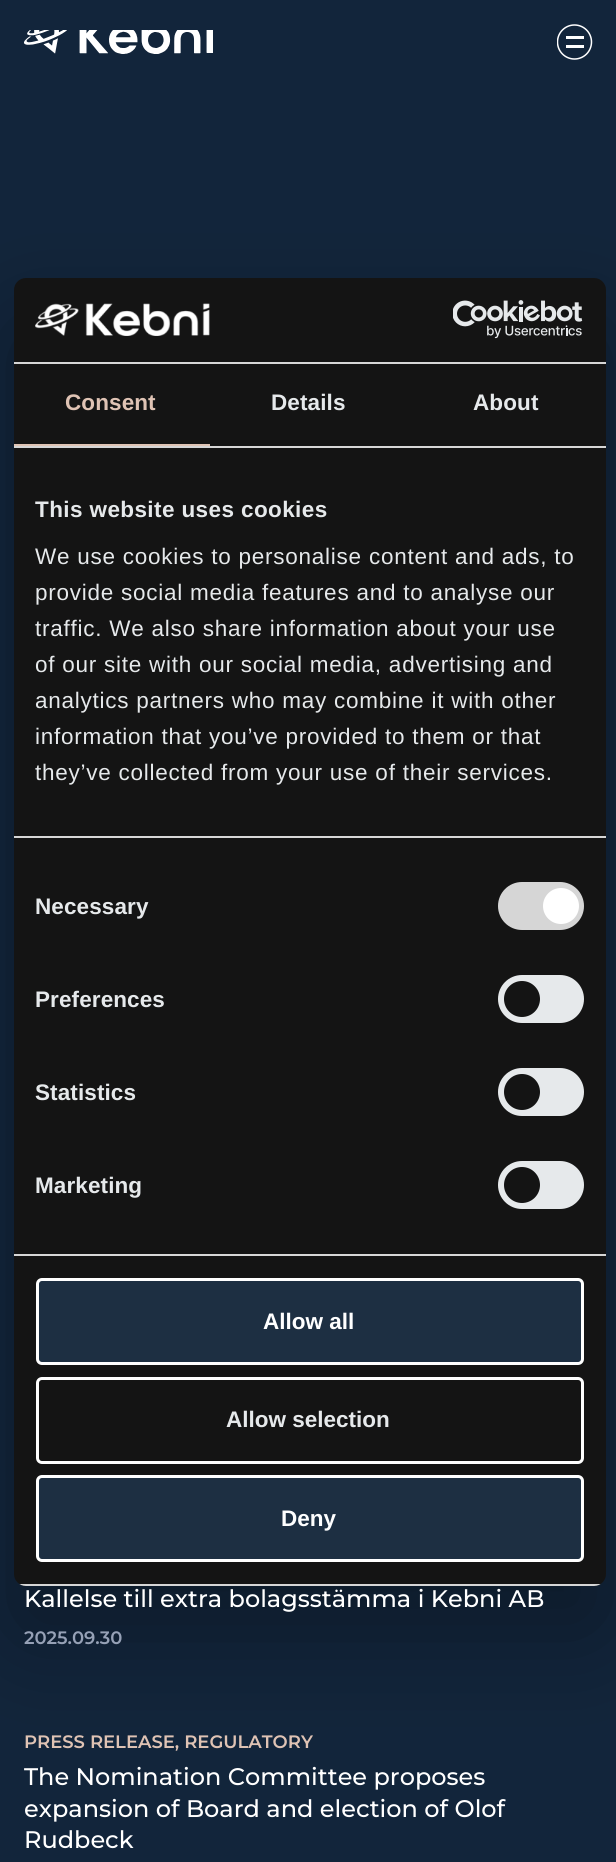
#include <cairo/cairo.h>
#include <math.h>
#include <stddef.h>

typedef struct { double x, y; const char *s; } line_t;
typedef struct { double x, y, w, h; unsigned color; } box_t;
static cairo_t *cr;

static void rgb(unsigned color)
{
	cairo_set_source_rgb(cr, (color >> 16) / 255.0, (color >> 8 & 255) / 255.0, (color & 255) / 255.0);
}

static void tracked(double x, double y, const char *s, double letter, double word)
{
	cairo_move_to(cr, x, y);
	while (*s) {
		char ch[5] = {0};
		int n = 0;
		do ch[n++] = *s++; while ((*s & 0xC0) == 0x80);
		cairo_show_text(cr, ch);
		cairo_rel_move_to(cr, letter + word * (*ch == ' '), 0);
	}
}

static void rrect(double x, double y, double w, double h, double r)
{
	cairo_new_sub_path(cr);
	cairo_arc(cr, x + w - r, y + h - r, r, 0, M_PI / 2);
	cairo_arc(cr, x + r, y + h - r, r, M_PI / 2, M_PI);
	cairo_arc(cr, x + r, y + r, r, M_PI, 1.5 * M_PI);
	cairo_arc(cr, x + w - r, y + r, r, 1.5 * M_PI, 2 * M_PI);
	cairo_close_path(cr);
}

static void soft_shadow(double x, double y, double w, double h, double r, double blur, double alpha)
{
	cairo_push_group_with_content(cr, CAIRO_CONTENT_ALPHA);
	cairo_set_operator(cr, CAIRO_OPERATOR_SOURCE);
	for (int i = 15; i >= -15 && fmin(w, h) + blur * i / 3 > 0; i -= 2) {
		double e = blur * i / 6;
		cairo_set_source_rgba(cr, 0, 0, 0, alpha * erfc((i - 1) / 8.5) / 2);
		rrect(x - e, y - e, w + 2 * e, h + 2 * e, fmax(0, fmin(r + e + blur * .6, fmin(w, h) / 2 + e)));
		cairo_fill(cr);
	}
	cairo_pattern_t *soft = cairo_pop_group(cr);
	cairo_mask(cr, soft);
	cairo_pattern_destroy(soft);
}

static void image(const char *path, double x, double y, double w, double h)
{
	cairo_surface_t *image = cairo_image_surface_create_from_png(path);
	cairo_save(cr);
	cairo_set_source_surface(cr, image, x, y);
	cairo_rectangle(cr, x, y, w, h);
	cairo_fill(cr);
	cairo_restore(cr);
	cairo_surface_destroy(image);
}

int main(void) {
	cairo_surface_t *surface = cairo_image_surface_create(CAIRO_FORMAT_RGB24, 616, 1862);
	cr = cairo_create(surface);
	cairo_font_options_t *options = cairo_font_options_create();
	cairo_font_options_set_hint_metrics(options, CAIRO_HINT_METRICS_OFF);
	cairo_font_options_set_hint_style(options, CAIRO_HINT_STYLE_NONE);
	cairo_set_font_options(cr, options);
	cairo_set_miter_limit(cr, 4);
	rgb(0x12253b);
	cairo_paint(cr);
	image("img/1.png", 24, 30, 189, 24);
	cairo_save(cr);
	cairo_rectangle(cr, 557, 24, 36, 36);
	cairo_clip(cr);
	cairo_arc(cr, 574.5, 42, 17, 0, 2 * M_PI);
	rgb(0xffffff);
	cairo_set_line_width(cr, 1.5);
	cairo_stroke(cr);
	cairo_restore(cr);
	rgb(0xffffff);
	cairo_rectangle(cr, 566, 36, 18, 3);
	cairo_fill(cr);
	cairo_rectangle(cr, 566, 45, 18, 3);
	cairo_fill(cr);
	rgb(0x000000);
	soft_shadow(14, 326, 592, 1308, 12, 51, 0.3);
	rgb(0x141414);
	rrect(14, 278, 592, 1308, 12);
	cairo_fill(cr);
	rgb(0xd6d6d6);
	cairo_rectangle(cr, 14, 362, 592, 2);
	cairo_fill(cr);
	image("img/2.png", 35, 303, 175, 33);
	image("img/3.png", 453, 300, 130, 39);
	{
		static const box_t items[] = {
			{14, 446, 592, 2, 0xd6d6d6},
			{14, 444, 196, 2, 0xdfc4b5},
			{14, 836, 592, 2, 0xd6d6d6},
			{14, 1254, 592, 2, 0xd6d6d6},
		};
		for (size_t i = 0; i < sizeof items / sizeof *items; i++) {
			rgb(items[i].color);
			cairo_rectangle(cr, items[i].x, items[i].y, items[i].w, items[i].h);
			cairo_fill(cr);
		}
	}
	rrect(498, 882, 86, 48, 24);
	cairo_fill(cr);
	rgb(0xffffff);
	cairo_arc(cr, 561, 906, 18, 0, 2 * M_PI);
	cairo_fill(cr);
	rgb(0xe6e9eb);
	rrect(498, 975, 86, 48, 24);
	cairo_fill(cr);
	rgb(0x141414);
	cairo_arc(cr, 522, 999, 18, 0, 2 * M_PI);
	cairo_fill(cr);
	rgb(0xe6e9eb);
	rrect(498, 1068, 86, 48, 24);
	cairo_fill(cr);
	rgb(0x141414);
	cairo_arc(cr, 522, 1092, 18, 0, 2 * M_PI);
	cairo_fill(cr);
	rgb(0xe6e9eb);
	rrect(498, 1161, 86, 48, 24);
	cairo_fill(cr);
	rgb(0x141414);
	cairo_arc(cr, 522, 1185, 18, 0, 2 * M_PI);
	cairo_fill(cr);
	cairo_save(cr);
	rrect(14, 278, 592, 1308, 12);
	cairo_clip(cr);
	rgb(0xd6d6d6);
	cairo_rectangle(cr, 14, 1584, 592, 2);
	cairo_fill(cr);
	cairo_restore(cr);
	rgb(0x1d2f42);
	rrect(37.5, 1279.5, 545, 84, 4.5);
	cairo_fill_preserve(cr);
	rgb(0xffffff);
	cairo_set_line_width(cr, 3);
	cairo_stroke(cr);
	rrect(37.5, 1378.5, 545, 84, 4.5);
	cairo_stroke(cr);
	rgb(0x1d2f42);
	rrect(37.5, 1476.5, 545, 84, 4.5);
	cairo_fill_preserve(cr);
	rgb(0xffffff);
	cairo_stroke(cr);
	cairo_select_font_face(cr, "Liberation Sans", CAIRO_FONT_SLANT_NORMAL, CAIRO_FONT_WEIGHT_BOLD);
	cairo_set_font_size(cr, 22.5);
	rgb(0xdfc3b4);
	tracked(65, 410, "Consent", 0.1, 0);
	rgb(0xe6e9eb);
	tracked(271, 410, "Details", 0.1, 0);
	tracked(473, 410, "About", 0.1, 0);
	tracked(35, 517, "This website uses cookies", 0.4, 0);
	cairo_select_font_face(cr, "Liberation Sans", CAIRO_FONT_SLANT_NORMAL, CAIRO_FONT_WEIGHT_NORMAL);
	{
		static const line_t items[] = {
			{35, 564, "We use cookies to personalise content and ads, to"},
			{35, 600, "provide social media features and to analyse our"},
			{35, 636, "traffic. We also share information about your use"},
			{35, 672, "of our site with our social media, advertising and"},
			{35, 708, "analytics partners who may combine it with other"},
			{35, 744, "information that you’ve provided to them or that"},
			{35, 780, "they’ve collected from your use of their services."},
		};
		for (size_t i = 0; i < sizeof items / sizeof *items; i++) {
			tracked(items[i].x, items[i].y, items[i].s, 0.75, 0);
		}
	}
	cairo_select_font_face(cr, "Liberation Sans", CAIRO_FONT_SLANT_NORMAL, CAIRO_FONT_WEIGHT_BOLD);
	{
		static const line_t items[] = {
			{35, 914, "Necessary"},
			{35, 1007, "Preferences"},
			{35, 1100, "Statistics"},
			{35, 1193, "Marketing"},
		};
		for (size_t i = 0; i < sizeof items / sizeof *items; i++) {
			tracked(items[i].x, items[i].y, items[i].s, 0.1, 0);
		}
	}
	rgb(0xffffff);
	cairo_move_to(cr, 263, 1329);
	cairo_show_text(cr, "Allow all");
	rgb(0xe6e9eb);
	cairo_move_to(cr, 226, 1427);
	cairo_show_text(cr, "Allow selection");
	rgb(0xffffff);
	cairo_move_to(cr, 281, 1526);
	cairo_show_text(cr, "Deny");
	cairo_select_font_face(cr, "Montserrat Medium", CAIRO_FONT_SLANT_NORMAL, CAIRO_FONT_WEIGHT_NORMAL);
	cairo_set_font_size(cr, 24);
	cairo_move_to(cr, 24, 1607);
	cairo_show_text(cr, "Kallelse till extra bolagsstämma i Kebni AB");
	cairo_select_font_face(cr, "Montserrat SemiBold", CAIRO_FONT_SLANT_NORMAL, CAIRO_FONT_WEIGHT_NORMAL);
	cairo_set_font_size(cr, 18);
	rgb(0x96a1b6);
	cairo_move_to(cr, 24, 1644);
	cairo_show_text(cr, "2025.09.30");
	rgb(0xdfc3b4);
	cairo_move_to(cr, 24, 1748);
	cairo_show_text(cr, "PRESS RELEASE, REGULATORY");
	cairo_select_font_face(cr, "Montserrat Medium", CAIRO_FONT_SLANT_NORMAL, CAIRO_FONT_WEIGHT_NORMAL);
	cairo_set_font_size(cr, 24);
	rgb(0xffffff);
	{
		static const line_t items[] = {
			{24, 1785, "The Nomination Committee proposes"},
			{24, 1817, "expansion of Board and election of Olof"},
			{24, 1848, "Rudbeck"},
		};
		for (size_t i = 0; i < sizeof items / sizeof *items; i++) {
			cairo_move_to(cr, items[i].x, items[i].y);
			cairo_show_text(cr, items[i].s);
		}
	}
	cairo_surface_write_to_png(surface, "page.png");
	cairo_font_options_destroy(options);
	cairo_destroy(cr);
	cairo_surface_destroy(surface);
	return 0;
}
